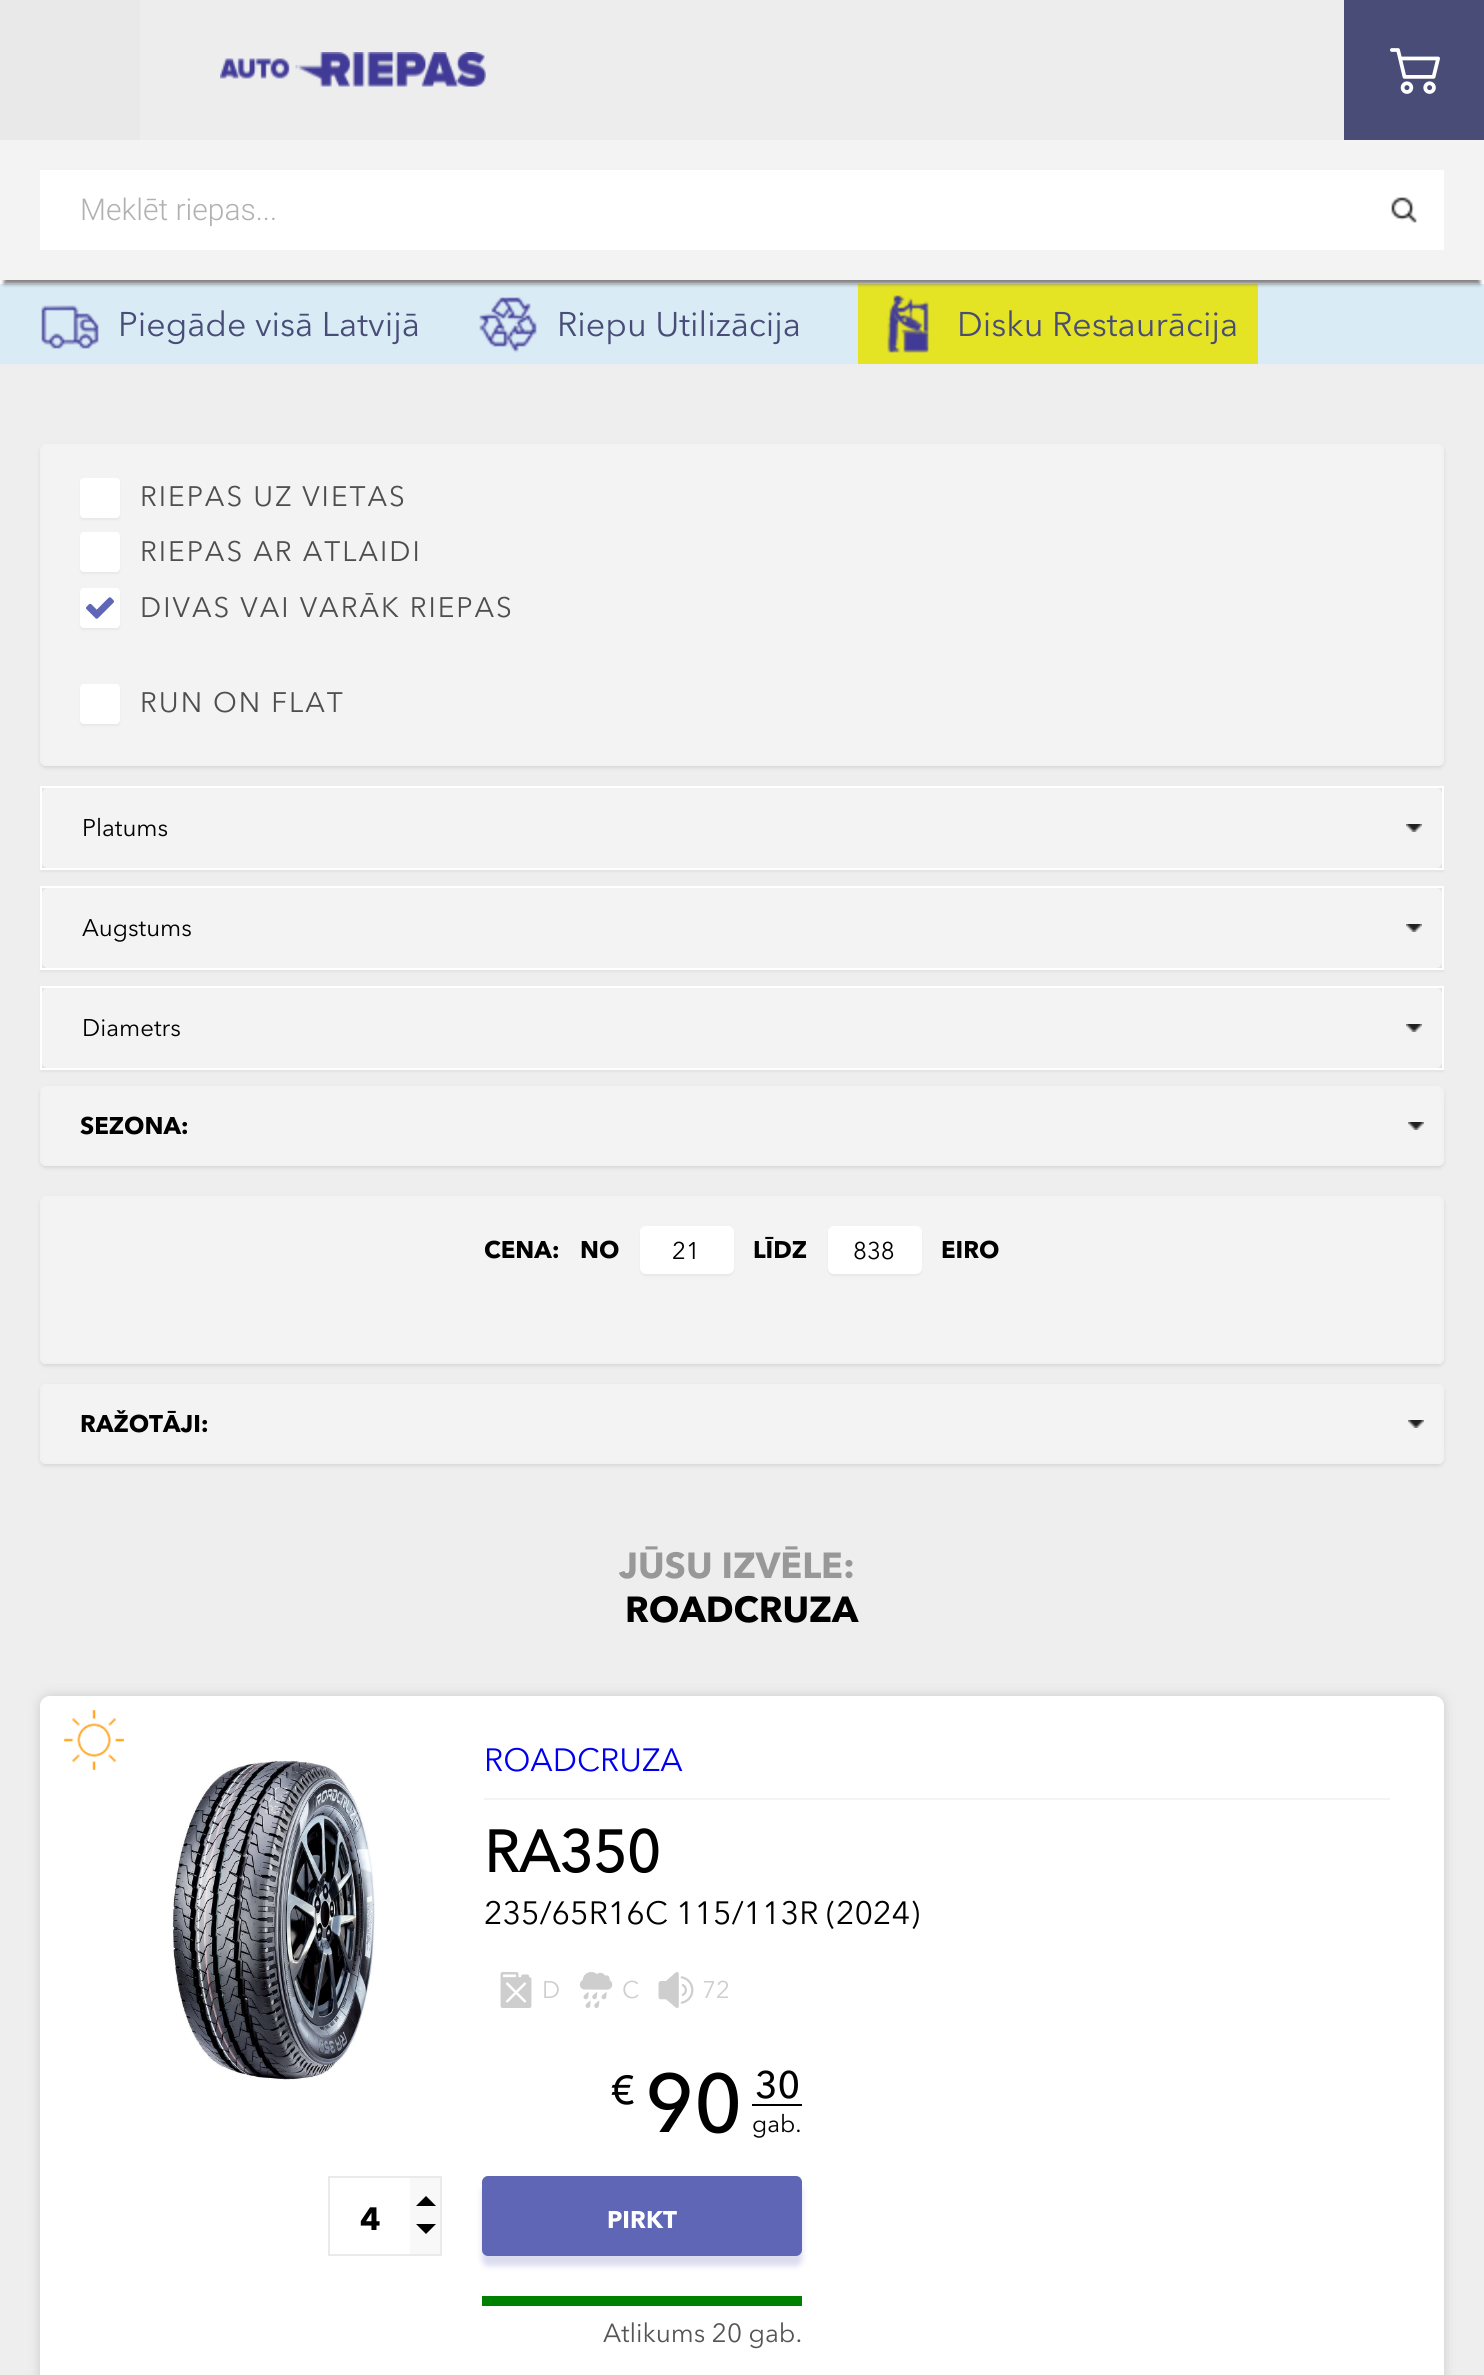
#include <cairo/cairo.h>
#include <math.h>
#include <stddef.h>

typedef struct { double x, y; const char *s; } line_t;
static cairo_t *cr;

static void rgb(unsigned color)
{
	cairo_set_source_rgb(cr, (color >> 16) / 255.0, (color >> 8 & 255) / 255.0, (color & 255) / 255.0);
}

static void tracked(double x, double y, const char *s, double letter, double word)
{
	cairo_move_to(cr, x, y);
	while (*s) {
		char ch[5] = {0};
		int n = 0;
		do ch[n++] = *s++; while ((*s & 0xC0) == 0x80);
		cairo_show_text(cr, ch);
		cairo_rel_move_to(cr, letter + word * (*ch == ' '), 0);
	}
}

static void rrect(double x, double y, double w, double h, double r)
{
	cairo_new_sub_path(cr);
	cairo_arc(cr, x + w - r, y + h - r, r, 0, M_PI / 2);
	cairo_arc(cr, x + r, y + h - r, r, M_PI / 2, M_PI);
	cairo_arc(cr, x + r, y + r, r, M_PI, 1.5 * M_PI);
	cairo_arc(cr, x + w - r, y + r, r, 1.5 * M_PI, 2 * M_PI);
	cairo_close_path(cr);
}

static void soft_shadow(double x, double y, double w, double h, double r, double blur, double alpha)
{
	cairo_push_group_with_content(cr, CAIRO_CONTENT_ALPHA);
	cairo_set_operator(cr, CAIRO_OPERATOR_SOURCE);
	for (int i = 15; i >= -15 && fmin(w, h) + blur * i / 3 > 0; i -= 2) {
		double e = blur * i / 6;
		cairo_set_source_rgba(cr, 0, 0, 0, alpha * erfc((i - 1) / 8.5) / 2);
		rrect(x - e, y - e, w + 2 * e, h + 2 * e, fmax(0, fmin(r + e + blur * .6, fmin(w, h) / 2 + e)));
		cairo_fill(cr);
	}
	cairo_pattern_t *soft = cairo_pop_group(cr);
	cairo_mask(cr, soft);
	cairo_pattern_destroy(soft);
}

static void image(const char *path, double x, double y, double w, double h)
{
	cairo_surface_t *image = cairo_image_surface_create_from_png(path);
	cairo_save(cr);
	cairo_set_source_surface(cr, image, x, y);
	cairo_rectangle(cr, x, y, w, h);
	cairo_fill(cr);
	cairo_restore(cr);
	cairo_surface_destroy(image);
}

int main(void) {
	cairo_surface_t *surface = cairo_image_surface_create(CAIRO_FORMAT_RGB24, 1484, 2375);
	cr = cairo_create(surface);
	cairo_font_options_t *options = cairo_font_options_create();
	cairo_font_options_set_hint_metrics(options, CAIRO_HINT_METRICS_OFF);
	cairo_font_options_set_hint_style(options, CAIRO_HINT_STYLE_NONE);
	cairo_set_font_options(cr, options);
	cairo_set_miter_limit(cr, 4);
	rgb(0xffffff);
	cairo_paint(cr);
	rgb(0xd9ebf5);
	cairo_rectangle(cr, 0, 284, 1484, 80);
	cairo_fill(cr);
	rgb(0xe4e424);
	cairo_rectangle(cr, 858, 284, 400, 80);
	cairo_fill(cr);
	rgb(0x808080);
	soft_shadow(4, 12, 1476, 272, 0, 2, 1);
	rgb(0xededed);
	cairo_rectangle(cr, 140, 0, 1204, 140);
	cairo_fill(cr);
	rgb(0xe9e9e9);
	cairo_rectangle(cr, 0, 0, 140, 140);
	cairo_fill(cr);
	image("img/1.png", 220, 52, 266, 35);
	rgb(0x484c77);
	cairo_rectangle(cr, 1344, 0, 140, 140);
	cairo_fill(cr);
	image("img/2.png", 1390, 48, 50, 46);
	rgb(0xf3f3f3);
	cairo_rectangle(cr, 0, 140, 1484, 140);
	cairo_fill(cr);
	rgb(0xffffff);
	cairo_rectangle(cr, 40, 170, 1404, 80);
	cairo_fill(cr);
	image("img/3.png", 1391, 197, 26, 26);
	image("img/4.png", 41, 305, 58, 44);
	image("img/5.png", 479, 297, 58, 56);
	image("img/6.png", 887, 295, 42, 58);
	rgb(0xeeeeee);
	cairo_rectangle(cr, 0, 364, 1484, 2011);
	cairo_fill(cr);
	rgb(0x000000);
	soft_shadow(40, 446, 1404, 322, 6, 2, 0.1);
	rgb(0xf3f3f3);
	rrect(40, 444, 1404, 322, 6);
	cairo_fill(cr);
	rgb(0xf1f1f1);
	cairo_new_path(cr);
	cairo_move_to(cr, 1436, 766);
	cairo_curve_to(cr, 1440, 766, 1444, 765, 1444, 760);
	cairo_line_to(cr, 1444, 449);
	cairo_curve_to(cr, 1443, 445, 1439, 444, 1436, 444);
	cairo_curve_to(cr, 1439, 444, 1442, 447, 1442, 450);
	cairo_line_to(cr, 1442, 760);
	cairo_curve_to(cr, 1442, 763, 1439, 766, 1436, 766);
	cairo_close_path(cr);
	cairo_fill(cr);
	cairo_new_path(cr);
	cairo_move_to(cr, 43, 445);
	cairo_curve_to(cr, 41, 446, 40, 448, 40, 450);
	cairo_line_to(cr, 40, 760);
	cairo_curve_to(cr, 40, 763, 43, 766, 46, 766);
	cairo_line_to(cr, 1438, 766);
	cairo_curve_to(cr, 1440, 766, 1442, 765, 1443, 763);
	cairo_curve_to(cr, 1442, 764, 1441, 764, 1440, 764);
	cairo_line_to(cr, 48, 764);
	cairo_curve_to(cr, 45, 764, 42, 761, 42, 758);
	cairo_line_to(cr, 42, 448);
	cairo_curve_to(cr, 42, 447, 42, 446, 43, 445);
	cairo_close_path(cr);
	cairo_fill(cr);
	rgb(0x000000);
	soft_shadow(80, 480, 40, 40, 4, 1, 0.05);
	rgb(0xffffff);
	rrect(80, 478, 40, 40, 4);
	cairo_fill(cr);
	rgb(0x000000);
	soft_shadow(80, 534, 40, 40, 4, 1, 0.05);
	rgb(0xffffff);
	rrect(80, 532, 40, 40, 4);
	cairo_fill(cr);
	rgb(0x000000);
	soft_shadow(80, 590, 40, 40, 4, 1, 0.05);
	rgb(0xffffff);
	rrect(80, 588, 40, 40, 4);
	cairo_fill(cr);
	image("img/7.png", 86, 597, 28, 22);
	rgb(0x000000);
	soft_shadow(80, 686, 40, 40, 4, 1, 0.05);
	rgb(0xffffff);
	rrect(80, 684, 40, 40, 4);
	cairo_fill(cr);
	rgb(0x000000);
	soft_shadow(40, 788, 1404, 84, 0, 1, 0.05);
	cairo_rectangle(cr, 41, 787, 1402, 82);
	rgb(0xffffff);
	cairo_stroke(cr);
	rgb(0xf3f3f3);
	rrect(42, 788, 1400, 80, 6);
	cairo_fill(cr);
	image("img/8.png", 1406, 824, 16, 8);
	rgb(0x000000);
	soft_shadow(40, 888, 1404, 84, 0, 1, 0.05);
	cairo_rectangle(cr, 41, 887, 1402, 82);
	rgb(0xffffff);
	cairo_stroke(cr);
	rgb(0xf3f3f3);
	rrect(42, 888, 1400, 80, 6);
	cairo_fill(cr);
	image("img/8.png", 1406, 924, 16, 8);
	rgb(0x000000);
	soft_shadow(40, 988, 1404, 84, 0, 1, 0.05);
	cairo_rectangle(cr, 41, 987, 1402, 82);
	rgb(0xffffff);
	cairo_stroke(cr);
	rgb(0xf3f3f3);
	rrect(42, 988, 1400, 80, 6);
	cairo_fill(cr);
	image("img/8.png", 1406, 1024, 16, 8);
	rgb(0x000000);
	soft_shadow(40, 1088, 1404, 80, 6, 2, 0.1);
	rgb(0xf3f3f3);
	rrect(40, 1086, 1404, 80, 6);
	cairo_fill(cr);
	rgb(0xf1f1f1);
	cairo_new_path(cr);
	cairo_move_to(cr, 1436, 1166);
	cairo_curve_to(cr, 1447, 1166, 1444, 1157, 1444, 1149);
	cairo_line_to(cr, 1444, 1103);
	cairo_curve_to(cr, 1444, 1095, 1447, 1086, 1436, 1086);
	cairo_curve_to(cr, 1439, 1086, 1442, 1089, 1442, 1092);
	cairo_line_to(cr, 1442, 1160);
	cairo_curve_to(cr, 1442, 1163, 1439, 1166, 1436, 1166);
	cairo_close_path(cr);
	cairo_fill(cr);
	cairo_new_path(cr);
	cairo_move_to(cr, 43, 1087);
	cairo_curve_to(cr, 41, 1088, 40, 1090, 40, 1092);
	cairo_line_to(cr, 40, 1160);
	cairo_curve_to(cr, 40, 1163, 43, 1166, 46, 1166);
	cairo_line_to(cr, 1438, 1166);
	cairo_curve_to(cr, 1440, 1166, 1442, 1165, 1443, 1163);
	cairo_curve_to(cr, 1442, 1164, 1441, 1164, 1440, 1164);
	cairo_line_to(cr, 48, 1164);
	cairo_curve_to(cr, 45, 1164, 42, 1161, 42, 1158);
	cairo_line_to(cr, 42, 1090);
	cairo_curve_to(cr, 42, 1089, 42, 1088, 43, 1087);
	cairo_close_path(cr);
	cairo_fill(cr);
	image("img/8.png", 1408, 1122, 16, 8);
	rgb(0x000000);
	soft_shadow(40, 1198, 1404, 168, 6, 2, 0.1);
	rgb(0xf3f3f3);
	rrect(40, 1196, 1404, 168, 6);
	cairo_fill(cr);
	rgb(0xf1f1f1);
	cairo_new_path(cr);
	cairo_move_to(cr, 1436, 1364);
	cairo_line_to(cr, 1438, 1364);
	cairo_curve_to(cr, 1441, 1364, 1444, 1361, 1444, 1358);
	cairo_line_to(cr, 1444, 1202);
	cairo_curve_to(cr, 1444, 1199, 1441, 1196, 1438, 1196);
	cairo_line_to(cr, 1436, 1196);
	cairo_curve_to(cr, 1439, 1196, 1442, 1199, 1442, 1202);
	cairo_line_to(cr, 1442, 1358);
	cairo_curve_to(cr, 1442, 1361, 1439, 1364, 1436, 1364);
	cairo_close_path(cr);
	cairo_fill(cr);
	cairo_new_path(cr);
	cairo_move_to(cr, 43, 1197);
	cairo_curve_to(cr, 41, 1198, 40, 1200, 40, 1202);
	cairo_line_to(cr, 40, 1358);
	cairo_curve_to(cr, 40, 1361, 43, 1364, 46, 1364);
	cairo_line_to(cr, 1438, 1364);
	cairo_curve_to(cr, 1440, 1364, 1442, 1363, 1443, 1361);
	cairo_curve_to(cr, 1442, 1362, 1441, 1362, 1440, 1362);
	cairo_line_to(cr, 48, 1362);
	cairo_curve_to(cr, 45, 1362, 42, 1359, 42, 1356);
	cairo_line_to(cr, 42, 1200);
	cairo_curve_to(cr, 42, 1199, 42, 1198, 43, 1197);
	cairo_close_path(cr);
	cairo_fill(cr);
	rgb(0x000000);
	soft_shadow(640, 1228, 94, 48, 6, 1, 0.05);
	rgb(0xffffff);
	rrect(640, 1226, 94, 48, 6);
	cairo_fill(cr);
	rgb(0x000000);
	soft_shadow(828, 1228, 94, 48, 6, 1, 0.05);
	rgb(0xffffff);
	rrect(828, 1226, 94, 48, 6);
	cairo_fill(cr);
	rgb(0x000000);
	soft_shadow(40, 1386, 1404, 80, 6, 2, 0.1);
	rgb(0xf3f3f3);
	rrect(40, 1384, 1404, 80, 6);
	cairo_fill(cr);
	rgb(0xf1f1f1);
	cairo_new_path(cr);
	cairo_move_to(cr, 1436, 1464);
	cairo_curve_to(cr, 1447, 1464, 1444, 1455, 1444, 1447);
	cairo_line_to(cr, 1444, 1401);
	cairo_curve_to(cr, 1444, 1393, 1447, 1384, 1436, 1384);
	cairo_curve_to(cr, 1439, 1384, 1442, 1387, 1442, 1390);
	cairo_line_to(cr, 1442, 1458);
	cairo_curve_to(cr, 1442, 1461, 1439, 1464, 1436, 1464);
	cairo_close_path(cr);
	cairo_fill(cr);
	cairo_new_path(cr);
	cairo_move_to(cr, 43, 1385);
	cairo_curve_to(cr, 41, 1386, 40, 1388, 40, 1390);
	cairo_line_to(cr, 40, 1458);
	cairo_curve_to(cr, 40, 1461, 43, 1464, 46, 1464);
	cairo_line_to(cr, 1438, 1464);
	cairo_curve_to(cr, 1440, 1464, 1442, 1463, 1443, 1461);
	cairo_curve_to(cr, 1442, 1462, 1441, 1462, 1440, 1462);
	cairo_line_to(cr, 48, 1462);
	cairo_curve_to(cr, 45, 1462, 42, 1459, 42, 1456);
	cairo_line_to(cr, 42, 1388);
	cairo_curve_to(cr, 42, 1387, 42, 1386, 43, 1385);
	cairo_close_path(cr);
	cairo_fill(cr);
	image("img/8.png", 1408, 1420, 16, 8);
	rgb(0xcccccc);
	soft_shadow(40, 1696, 1404, 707, 10, 6, 1);
	rgb(0xffffff);
	rrect(40, 1696, 1404, 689, 10);
	cairo_fill(cr);
	image("img/9.png", 64, 1710, 60, 60);
	image("img/10.png", 172, 1760, 203, 320);
	rgb(0xf4f4f4);
	cairo_rectangle(cr, 484, 1798, 906, 2);
	cairo_fill(cr);
	image("img/11.png", 500, 1972, 32, 36);
	image("img/12.png", 579, 1972, 34, 36);
	image("img/13.png", 658, 1972, 36, 36);
	rgb(0x000000);
	cairo_rectangle(cr, 752, 2104, 50, 2);
	cairo_fill(cr);
	cairo_rectangle(cr, 329, 2177, 112, 78);
	rgb(0xeaeaea);
	cairo_stroke(cr);
	rgb(0xf8f8f8);
	cairo_rectangle(cr, 410, 2178, 30, 76);
	cairo_fill(cr);
	rgb(0x000000);
	cairo_new_path(cr);
	cairo_move_to(cr, 416, 2224);
	cairo_line_to(cr, 436, 2224);
	cairo_line_to(cr, 426, 2234);
	cairo_close_path(cr);
	cairo_move_to(cr, 436, 2206);
	cairo_line_to(cr, 416, 2206);
	cairo_line_to(cr, 426, 2196);
	cairo_close_path(cr);
	cairo_fill(cr);
	rgb(0x5f66b6);
	soft_shadow(482, 2186, 320, 80, 6, 3, 0.23);
	rgb(0x5f66b6);
	rrect(484, 2178, 316, 76, 4);
	cairo_fill_preserve(cr);
	cairo_set_line_width(cr, 4);
	cairo_stroke(cr);
	rgb(0x008000);
	cairo_rectangle(cr, 482, 2296, 320, 10);
	cairo_fill(cr);
	cairo_select_font_face(cr, "Roboto Light", CAIRO_FONT_SLANT_NORMAL, CAIRO_FONT_WEIGHT_NORMAL);
	cairo_set_font_size(cr, 30);
	rgb(0xb1b1b1);
	cairo_move_to(cr, 80, 220);
	cairo_show_text(cr, "Meklēt riepas...");
	cairo_select_font_face(cr, "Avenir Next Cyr", CAIRO_FONT_SLANT_NORMAL, CAIRO_FONT_WEIGHT_NORMAL);
	cairo_set_font_size(cr, 34);
	rgb(0x484c77);
	{
		static const line_t items[] = {
			{118, 336, "Piegāde visā Latvijā"},
			{557, 336, "Riepu Utilizācija"},
			{957, 336, "Disku Restaurācija"},
		};
		for (size_t i = 0; i < sizeof items / sizeof *items; i++) {
			cairo_move_to(cr, items[i].x, items[i].y);
			cairo_show_text(cr, items[i].s);
		}
	}
	cairo_set_font_size(cr, 28);
	rgb(0x4e4e4e);
	{
		static const line_t items[] = {
			{140, 506, "RIEPAS UZ VIETAS"},
			{140, 561, "RIEPAS AR ATLAIDI"},
			{140, 617, "DIVAS VAI VARĀK RIEPAS"},
			{140, 712, "RUN ON FLAT"},
		};
		for (size_t i = 0; i < sizeof items / sizeof *items; i++) {
			tracked(items[i].x, items[i].y, items[i].s, 2, 0);
		}
	}
	cairo_set_font_size(cr, 24);
	rgb(0x000000);
	{
		static const line_t items[] = {
			{82, 836, "Platums"},
			{82, 936, "Augstums"},
			{82, 1036, "Diametrs"},
		};
		for (size_t i = 0; i < sizeof items / sizeof *items; i++) {
			cairo_move_to(cr, items[i].x, items[i].y);
			cairo_show_text(cr, items[i].s);
		}
	}
	cairo_select_font_face(cr, "Avenir Next Cyr", CAIRO_FONT_SLANT_NORMAL, CAIRO_FONT_WEIGHT_BOLD);
	{
		static const line_t items[] = {
			{80, 1134, "SEZONA:"},
			{484, 1258, "CENA:"},
			{580, 1258, "NO"},
		};
		for (size_t i = 0; i < sizeof items / sizeof *items; i++) {
			cairo_move_to(cr, items[i].x, items[i].y);
			cairo_show_text(cr, items[i].s);
		}
	}
	cairo_select_font_face(cr, "Avenir Next Cyr", CAIRO_FONT_SLANT_NORMAL, CAIRO_FONT_WEIGHT_NORMAL);
	cairo_move_to(cr, 672, 1259);
	cairo_show_text(cr, "21");
	cairo_select_font_face(cr, "Avenir Next Cyr", CAIRO_FONT_SLANT_NORMAL, CAIRO_FONT_WEIGHT_BOLD);
	cairo_move_to(cr, 753, 1258);
	cairo_show_text(cr, "LĪDZ");
	cairo_select_font_face(cr, "Avenir Next Cyr", CAIRO_FONT_SLANT_NORMAL, CAIRO_FONT_WEIGHT_NORMAL);
	cairo_move_to(cr, 853, 1259);
	cairo_show_text(cr, "838");
	cairo_select_font_face(cr, "Avenir Next Cyr", CAIRO_FONT_SLANT_NORMAL, CAIRO_FONT_WEIGHT_BOLD);
	cairo_move_to(cr, 941, 1258);
	cairo_show_text(cr, "EIRO");
	cairo_move_to(cr, 80, 1432);
	cairo_show_text(cr, "RAŽOTĀJI:");
	cairo_set_font_size(cr, 36);
	rgb(0x989898);
	cairo_move_to(cr, 619, 1578);
	cairo_show_text(cr, "JŪSU IZVĒLE:");
	rgb(0x000000);
	cairo_move_to(cr, 625, 1622);
	cairo_show_text(cr, "ROADCRUZA");
	cairo_select_font_face(cr, "Avenir Next Cyr", CAIRO_FONT_SLANT_NORMAL, CAIRO_FONT_WEIGHT_NORMAL);
	cairo_set_font_size(cr, 32);
	rgb(0x0000ee);
	cairo_move_to(cr, 484, 1771);
	cairo_show_text(cr, "ROADCRUZA");
	cairo_select_font_face(cr, "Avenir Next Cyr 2", CAIRO_FONT_SLANT_NORMAL, CAIRO_FONT_WEIGHT_BOLD);
	cairo_set_font_size(cr, 58);
	rgb(0x000000);
	cairo_move_to(cr, 484, 1872);
	cairo_show_text(cr, "RA350");
	cairo_select_font_face(cr, "Avenir Next Cyr", CAIRO_FONT_SLANT_NORMAL, CAIRO_FONT_WEIGHT_NORMAL);
	cairo_set_font_size(cr, 32);
	cairo_move_to(cr, 484, 1924);
	cairo_show_text(cr, "235/65R16C 115/113R (2024)");
	cairo_set_font_size(cr, 24);
	rgb(0xcecece);
	{
		static const line_t items[] = {
			{542, 1998, "D"},
			{622, 1998, "C"},
			{702, 1998, "72"},
		};
		for (size_t i = 0; i < sizeof items / sizeof *items; i++) {
			cairo_move_to(cr, items[i].x, items[i].y);
			cairo_show_text(cr, items[i].s);
		}
	}
	cairo_select_font_face(cr, "Avenir Next Cyr Medium", CAIRO_FONT_SLANT_NORMAL, CAIRO_FONT_WEIGHT_NORMAL);
	cairo_set_font_size(cr, 40);
	rgb(0x000000);
	cairo_move_to(cr, 611, 2104);
	cairo_show_text(cr, "€");
	cairo_set_font_size(cr, 82);
	cairo_move_to(cr, 645, 2132);
	cairo_show_text(cr, "90");
	cairo_set_font_size(cr, 38);
	cairo_move_to(cr, 755, 2098);
	cairo_show_text(cr, "30");
	cairo_select_font_face(cr, "Avenir Next Cyr", CAIRO_FONT_SLANT_NORMAL, CAIRO_FONT_WEIGHT_NORMAL);
	cairo_set_font_size(cr, 24);
	cairo_move_to(cr, 752, 2132);
	cairo_show_text(cr, "gab.");
	cairo_select_font_face(cr, "Avenir Next Cyr", CAIRO_FONT_SLANT_NORMAL, CAIRO_FONT_WEIGHT_BOLD);
	cairo_set_font_size(cr, 32);
	cairo_move_to(cr, 360, 2230);
	cairo_show_text(cr, "4");
	cairo_set_font_size(cr, 24);
	rgb(0xffffff);
	cairo_move_to(cr, 607, 2228);
	cairo_show_text(cr, "PIRKT");
	cairo_select_font_face(cr, "Avenir Next Cyr", CAIRO_FONT_SLANT_NORMAL, CAIRO_FONT_WEIGHT_NORMAL);
	cairo_set_font_size(cr, 26);
	rgb(0x555555);
	cairo_move_to(cr, 603, 2342);
	cairo_show_text(cr, "Atlikums 20 gab.");
	cairo_surface_write_to_png(surface, "page.png");
	cairo_font_options_destroy(options);
	cairo_destroy(cr);
	cairo_surface_destroy(surface);
	return 0;
}
